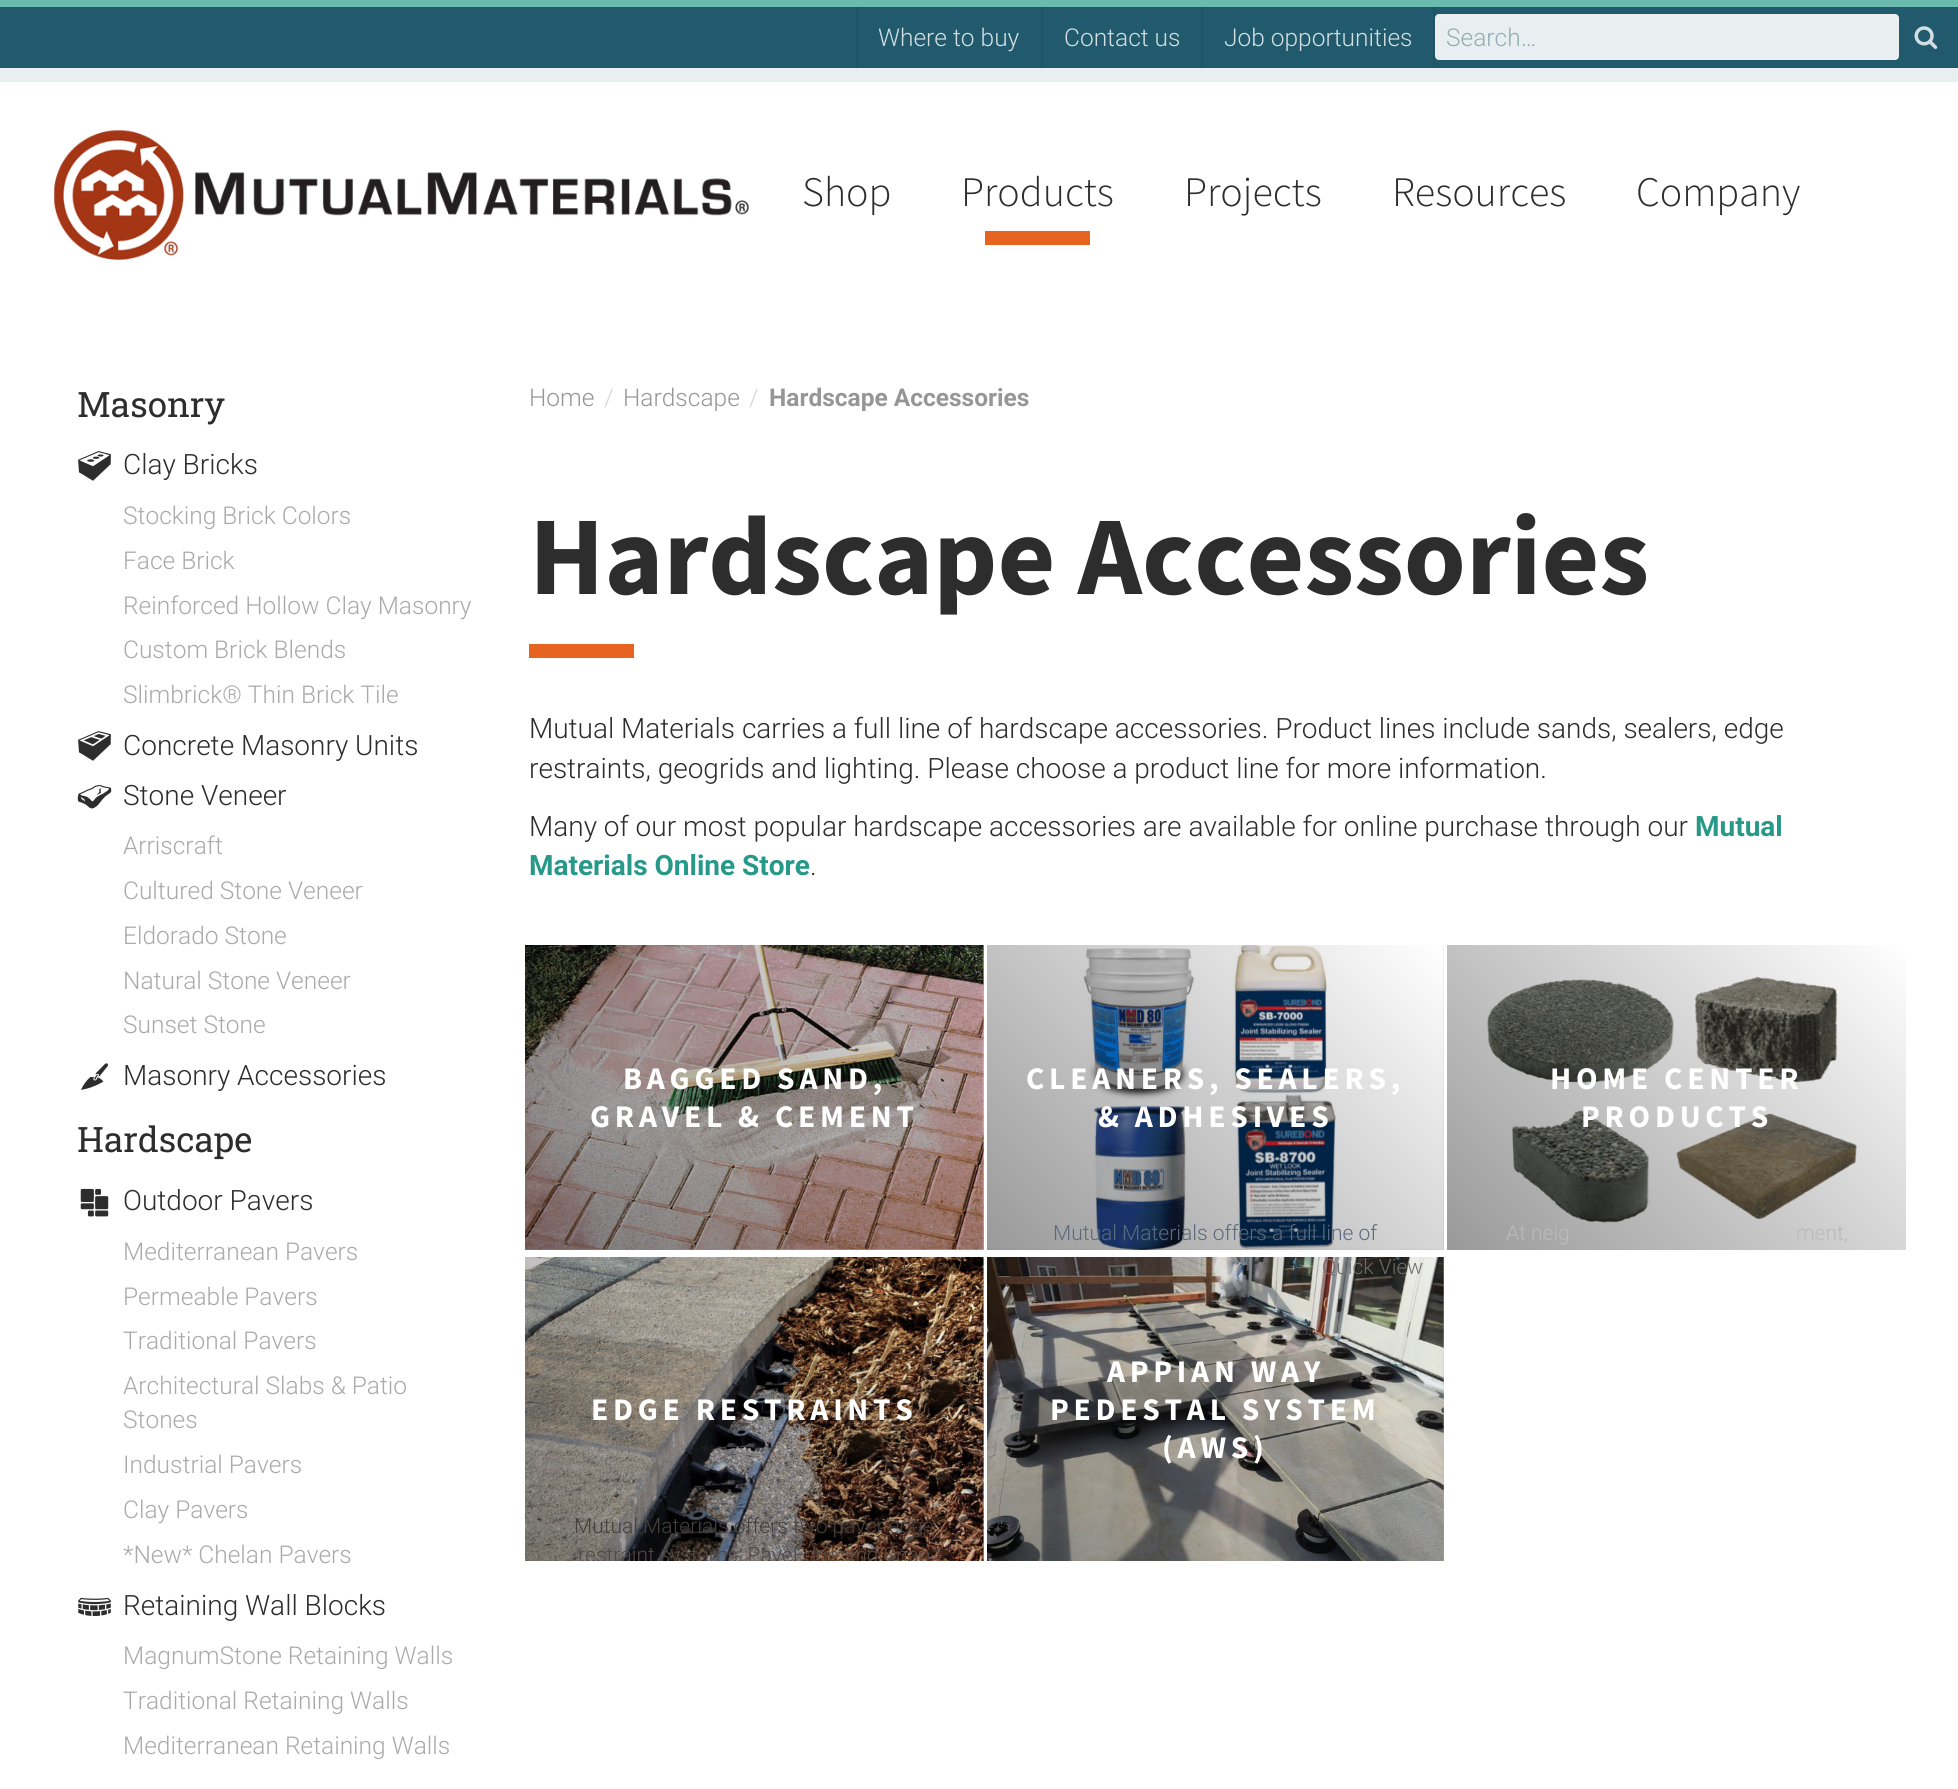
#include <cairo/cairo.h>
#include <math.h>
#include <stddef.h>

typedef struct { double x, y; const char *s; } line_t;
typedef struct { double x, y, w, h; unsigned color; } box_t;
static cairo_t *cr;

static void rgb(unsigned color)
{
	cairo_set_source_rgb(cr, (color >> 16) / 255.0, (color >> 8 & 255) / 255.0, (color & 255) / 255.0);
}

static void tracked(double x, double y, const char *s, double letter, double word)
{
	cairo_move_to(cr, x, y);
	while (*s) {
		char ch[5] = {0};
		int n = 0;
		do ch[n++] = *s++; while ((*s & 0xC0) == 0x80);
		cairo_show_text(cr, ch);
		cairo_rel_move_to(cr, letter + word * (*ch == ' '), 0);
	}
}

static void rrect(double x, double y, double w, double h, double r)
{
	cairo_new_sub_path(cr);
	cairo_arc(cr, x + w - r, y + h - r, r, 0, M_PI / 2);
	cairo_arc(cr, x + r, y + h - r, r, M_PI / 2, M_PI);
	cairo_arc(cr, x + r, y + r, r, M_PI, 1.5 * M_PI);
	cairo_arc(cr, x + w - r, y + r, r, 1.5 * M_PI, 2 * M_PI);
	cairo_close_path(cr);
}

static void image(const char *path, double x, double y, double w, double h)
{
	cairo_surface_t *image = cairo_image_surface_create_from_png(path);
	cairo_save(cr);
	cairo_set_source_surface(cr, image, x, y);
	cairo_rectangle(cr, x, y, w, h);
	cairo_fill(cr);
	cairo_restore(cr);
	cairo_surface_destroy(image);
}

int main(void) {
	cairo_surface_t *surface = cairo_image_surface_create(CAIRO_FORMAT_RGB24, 1958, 1789);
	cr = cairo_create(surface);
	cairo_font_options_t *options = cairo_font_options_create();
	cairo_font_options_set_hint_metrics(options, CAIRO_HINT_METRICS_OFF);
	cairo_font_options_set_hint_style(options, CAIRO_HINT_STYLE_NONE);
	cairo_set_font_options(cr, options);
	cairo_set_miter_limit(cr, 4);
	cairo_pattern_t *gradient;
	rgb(0xffffff);
	cairo_paint(cr);
	{
		static const box_t items[] = {
			{0, 7, 1958, 61, 0x215a6d},
			{0, 0, 1958, 7, 0x6bbbae},
			{0, 68, 1958, 14, 0xe9eff0},
			{856, 7, 2, 61, 0x1f5465},
			{1041, 7, 2, 61, 0x1f5465},
			{1201, 7, 2, 61, 0x1f5465},
			{1433, 7, 2, 60, 0x1f5465},
		};
		for (size_t i = 0; i < sizeof items / sizeof *items; i++) {
			rgb(items[i].color);
			cairo_rectangle(cr, items[i].x, items[i].y, items[i].w, items[i].h);
			cairo_fill(cr);
		}
	}
	rgb(0xe9eff0);
	rrect(1436, 15, 462, 44, 3);
	cairo_fill_preserve(cr);
	rgb(0xeeeeee);
	cairo_stroke(cr);
	image("img/1.png", 1914, 26, 24, 23);
	image("img/2.png", 54, 130, 695, 130);
	rgb(0xe66420);
	cairo_rectangle(cr, 985, 231, 105, 14);
	cairo_fill(cr);
	image("img/3.png", 78, 451, 33, 30);
	image("img/4.png", 78, 731, 33, 30);
	image("img/5.png", 77, 785, 35, 24);
	image("img/6.png", 81, 1063, 27, 27);
	image("img/7.png", 80, 1188, 29, 29);
	image("img/8.png", 78, 1597, 33, 19);
	cairo_rectangle(cr, 529, 644, 105, 14);
	cairo_fill(cr);
	rgb(0xd2d2d2);
	cairo_rectangle(cr, 525, 945, 459, 305);
	cairo_fill(cr);
	image("img/9.png", 525, 945, 459, 305);
	gradient = cairo_pattern_create_linear(564, 1288, 945, 907);
	cairo_pattern_add_color_stop_rgba(gradient, 0, 0, 0, 0, 0.4);
	cairo_pattern_add_color_stop_rgba(gradient, 1, 0, 0, 0, 0);
	cairo_set_source(cr, gradient);
	cairo_pattern_destroy(gradient);
	cairo_rectangle(cr, 525, 945, 459, 305);
	cairo_fill(cr);
	rgb(0xd2d2d2);
	cairo_rectangle(cr, 987, 945, 457, 305);
	cairo_fill(cr);
	image("img/10.png", 987, 945, 457, 305);
	gradient = cairo_pattern_create_linear(1025, 1288, 1406, 907);
	cairo_pattern_add_color_stop_rgba(gradient, 0, 0, 0, 0, 0.4);
	cairo_pattern_add_color_stop_rgba(gradient, 1, 0, 0, 0, 0);
	cairo_set_source(cr, gradient);
	cairo_pattern_destroy(gradient);
	cairo_rectangle(cr, 987, 945, 457, 305);
	cairo_fill(cr);
	image("img/11.png", 1447, 945, 459, 305);
	gradient = cairo_pattern_create_linear(1486, 1288, 1867, 907);
	cairo_pattern_add_color_stop_rgba(gradient, 0, 0, 0, 0, 0.4);
	cairo_pattern_add_color_stop_rgba(gradient, 1, 0, 0, 0, 0);
	cairo_set_source(cr, gradient);
	cairo_pattern_destroy(gradient);
	cairo_rectangle(cr, 1447, 945, 459, 305);
	cairo_fill(cr);
	rgb(0xd2d2d2);
	cairo_rectangle(cr, 983, 1257, 1, 304);
	cairo_fill(cr);
	image("img/12.png", 525, 1257, 459, 304);
	gradient = cairo_pattern_create_linear(564, 1600, 945, 1218);
	cairo_pattern_add_color_stop_rgba(gradient, 0, 0, 0, 0, 0.4);
	cairo_pattern_add_color_stop_rgba(gradient, 1, 0, 0, 0, 0);
	cairo_set_source(cr, gradient);
	cairo_pattern_destroy(gradient);
	cairo_rectangle(cr, 525, 1257, 459, 304);
	cairo_fill(cr);
	rgb(0xd2d2d2);
	cairo_rectangle(cr, 987, 1257, 457, 304);
	cairo_fill(cr);
	image("img/13.png", 987, 1257, 457, 304);
	gradient = cairo_pattern_create_linear(1025, 1599, 1406, 1218);
	cairo_pattern_add_color_stop_rgba(gradient, 0, 0, 0, 0, 0.4);
	cairo_pattern_add_color_stop_rgba(gradient, 1, 0, 0, 0, 0);
	cairo_set_source(cr, gradient);
	cairo_pattern_destroy(gradient);
	cairo_rectangle(cr, 987, 1257, 457, 304);
	cairo_fill(cr);
	cairo_select_font_face(cr, "Roboto Light", CAIRO_FONT_SLANT_NORMAL, CAIRO_FONT_WEIGHT_NORMAL);
	cairo_set_font_size(cr, 24.5);
	rgb(0xd3dee2);
	{
		static const line_t items[] = {
			{878, 46, "Where to buy"},
			{1064, 46, "Contact us"},
			{1224, 46, "Job opportunities"},
		};
		for (size_t i = 0; i < sizeof items / sizeof *items; i++) {
			cairo_move_to(cr, items[i].x, items[i].y);
			cairo_show_text(cr, items[i].s);
		}
	}
	rgb(0x90adb6);
	cairo_move_to(cr, 1446, 46);
	cairo_show_text(cr, "Search…");
	cairo_select_font_face(cr, "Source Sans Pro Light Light", CAIRO_FONT_SLANT_NORMAL, CAIRO_FONT_WEIGHT_NORMAL);
	cairo_set_font_size(cr, 42);
	rgb(0x2d2d2d);
	{
		static const line_t items[] = {
			{802, 206, "Shop"},
			{961, 206, "Products"},
			{1184, 206, "Projects"},
			{1392, 206, "Resources"},
			{1636, 206, "Company"},
		};
		for (size_t i = 0; i < sizeof items / sizeof *items; i++) {
			cairo_move_to(cr, items[i].x, items[i].y);
			cairo_show_text(cr, items[i].s);
		}
	}
	cairo_select_font_face(cr, "Roboto Slab", CAIRO_FONT_SLANT_NORMAL, CAIRO_FONT_WEIGHT_NORMAL);
	cairo_set_font_size(cr, 35);
	cairo_move_to(cr, 77, 417);
	cairo_show_text(cr, "Masonry");
	cairo_select_font_face(cr, "Roboto Light", CAIRO_FONT_SLANT_NORMAL, CAIRO_FONT_WEIGHT_NORMAL);
	cairo_set_font_size(cr, 28);
	cairo_move_to(cr, 123, 474);
	cairo_show_text(cr, "Clay Bricks");
	cairo_set_font_size(cr, 24.5);
	rgb(0xaaaaaa);
	{
		static const line_t items[] = {
			{123, 524, "Stocking Brick Colors"},
			{123, 569, "Face Brick"},
			{123, 614, "Reinforced Hollow Clay Masonry"},
			{123, 658, "Custom Brick Blends"},
			{123, 703, "Slimbrick® Thin Brick Tile"},
		};
		for (size_t i = 0; i < sizeof items / sizeof *items; i++) {
			cairo_move_to(cr, items[i].x, items[i].y);
			cairo_show_text(cr, items[i].s);
		}
	}
	cairo_set_font_size(cr, 28);
	rgb(0x2d2d2d);
	cairo_move_to(cr, 123, 755);
	cairo_show_text(cr, "Concrete Masonry Units");
	cairo_move_to(cr, 123, 805);
	cairo_show_text(cr, "Stone Veneer");
	cairo_set_font_size(cr, 24.5);
	rgb(0xaaaaaa);
	{
		static const line_t items[] = {
			{123, 854, "Arriscraft"},
			{123, 899, "Cultured Stone Veneer"},
			{123, 944, "Eldorado Stone"},
			{123, 989, "Natural Stone Veneer"},
			{123, 1033, "Sunset Stone"},
		};
		for (size_t i = 0; i < sizeof items / sizeof *items; i++) {
			cairo_move_to(cr, items[i].x, items[i].y);
			cairo_show_text(cr, items[i].s);
		}
	}
	cairo_set_font_size(cr, 28);
	rgb(0x2d2d2d);
	cairo_move_to(cr, 123, 1085);
	cairo_show_text(cr, "Masonry Accessories");
	cairo_select_font_face(cr, "Roboto Slab", CAIRO_FONT_SLANT_NORMAL, CAIRO_FONT_WEIGHT_NORMAL);
	cairo_set_font_size(cr, 35);
	cairo_move_to(cr, 77, 1152);
	cairo_show_text(cr, "Hardscape");
	cairo_select_font_face(cr, "Roboto Light", CAIRO_FONT_SLANT_NORMAL, CAIRO_FONT_WEIGHT_NORMAL);
	cairo_set_font_size(cr, 28);
	cairo_move_to(cr, 123, 1210);
	cairo_show_text(cr, "Outdoor Pavers");
	cairo_set_font_size(cr, 24.5);
	rgb(0xaaaaaa);
	{
		static const line_t items[] = {
			{123, 1260, "Mediterranean Pavers"},
			{123, 1305, "Permeable Pavers"},
			{123, 1349, "Traditional Pavers"},
			{123, 1394, "Architectural Slabs & Patio"},
			{123, 1428, "Stones"},
			{123, 1473, "Industrial Pavers"},
			{123, 1518, "Clay Pavers"},
			{123, 1563, "*New* Chelan Pavers"},
		};
		for (size_t i = 0; i < sizeof items / sizeof *items; i++) {
			cairo_move_to(cr, items[i].x, items[i].y);
			cairo_show_text(cr, items[i].s);
		}
	}
	cairo_set_font_size(cr, 28);
	rgb(0x2d2d2d);
	cairo_move_to(cr, 123, 1615);
	cairo_show_text(cr, "Retaining Wall Blocks");
	cairo_set_font_size(cr, 24.5);
	rgb(0xaaaaaa);
	{
		static const line_t items[] = {
			{123, 1664, "MagnumStone Retaining Walls"},
			{123, 1709, "Traditional Retaining Walls"},
			{123, 1754, "Mediterranean Retaining Walls"},
		};
		for (size_t i = 0; i < sizeof items / sizeof *items; i++) {
			cairo_move_to(cr, items[i].x, items[i].y);
			cairo_show_text(cr, items[i].s);
		}
	}
	rgb(0x969696);
	cairo_move_to(cr, 529, 406);
	cairo_show_text(cr, "Home");
	rgb(0xd5d5d5);
	cairo_move_to(cr, 604, 406);
	cairo_show_text(cr, "/");
	rgb(0x969696);
	cairo_move_to(cr, 623, 406);
	cairo_show_text(cr, "Hardscape");
	rgb(0xd5d5d5);
	cairo_move_to(cr, 749, 406);
	cairo_show_text(cr, "/");
	cairo_select_font_face(cr, "Roboto", CAIRO_FONT_SLANT_NORMAL, CAIRO_FONT_WEIGHT_BOLD);
	rgb(0x969696);
	cairo_move_to(cr, 769, 406);
	cairo_show_text(cr, "Hardscape Accessories");
	cairo_select_font_face(cr, "Source Sans Pro", CAIRO_FONT_SLANT_NORMAL, CAIRO_FONT_WEIGHT_BOLD);
	cairo_set_font_size(cr, 112);
	rgb(0x2d2d2d);
	cairo_move_to(cr, 529, 594);
	cairo_show_text(cr, "Hardscape Accessories");
	cairo_select_font_face(cr, "Roboto Light", CAIRO_FONT_SLANT_NORMAL, CAIRO_FONT_WEIGHT_NORMAL);
	cairo_set_font_size(cr, 28);
	{
		static const line_t items[] = {
			{529, 738, "Mutual Materials carries a full line of hardscape accessories. Product lines include sands, sealers, edge"},
			{529, 778, "restraints, geogrids and lighting. Please choose a product line for more information."},
			{529, 836, "Many of our most popular hardscape accessories are available for online purchase through our"},
		};
		for (size_t i = 0; i < sizeof items / sizeof *items; i++) {
			cairo_move_to(cr, items[i].x, items[i].y);
			cairo_show_text(cr, items[i].s);
		}
	}
	cairo_select_font_face(cr, "Roboto", CAIRO_FONT_SLANT_NORMAL, CAIRO_FONT_WEIGHT_BOLD);
	rgb(0x279989);
	cairo_move_to(cr, 1695, 836);
	cairo_show_text(cr, "Mutual");
	cairo_move_to(cr, 529, 875);
	cairo_show_text(cr, "Materials Online Store");
	cairo_select_font_face(cr, "Roboto Light", CAIRO_FONT_SLANT_NORMAL, CAIRO_FONT_WEIGHT_NORMAL);
	rgb(0x2d2d2d);
	cairo_move_to(cr, 810, 875);
	cairo_show_text(cr, ".");
	cairo_select_font_face(cr, "Source Sans Pro", CAIRO_FONT_SLANT_NORMAL, CAIRO_FONT_WEIGHT_BOLD);
	cairo_set_font_size(cr, 31.5);
	rgb(0xffffff);
	{
		static const line_t items[] = {
			{623, 1089, "BAGGED SAND,"},
			{590, 1127, "GRAVEL & CEMENT"},
			{1026, 1089, "CLEANERS, SEALERS,"},
			{1098, 1127, "& ADHESIVES"},
		};
		for (size_t i = 0; i < sizeof items / sizeof *items; i++) {
			tracked(items[i].x, items[i].y, items[i].s, 4.75, 0);
		}
	}
	cairo_select_font_face(cr, "Roboto Light", CAIRO_FONT_SLANT_NORMAL, CAIRO_FONT_WEIGHT_NORMAL);
	cairo_set_font_size(cr, 21);
	rgb(0x5c6a7d);
	cairo_move_to(cr, 1053, 1240);
	cairo_show_text(cr, "Mutual Materials offers a full line of");
	cairo_select_font_face(cr, "Source Sans Pro", CAIRO_FONT_SLANT_NORMAL, CAIRO_FONT_WEIGHT_BOLD);
	cairo_set_font_size(cr, 31.5);
	rgb(0xffffff);
	tracked(1550, 1089, "HOME CENTER", 4.75, 0);
	tracked(1581, 1127, "PRODUCTS", 4.75, 0);
	cairo_select_font_face(cr, "Roboto Light", CAIRO_FONT_SLANT_NORMAL, CAIRO_FONT_WEIGHT_NORMAL);
	cairo_set_font_size(cr, 21);
	rgb(0xbababa);
	cairo_move_to(cr, 1506, 1240);
	cairo_show_text(cr, "At neig");
	cairo_move_to(cr, 1796, 1240);
	cairo_show_text(cr, "ment,");
	rgb(0x573b27);
	cairo_move_to(cr, 861, 1274);
	cairo_show_text(cr, "Quick View");
	cairo_select_font_face(cr, "Source Sans Pro", CAIRO_FONT_SLANT_NORMAL, CAIRO_FONT_WEIGHT_BOLD);
	cairo_set_font_size(cr, 31.5);
	rgb(0xffffff);
	tracked(591, 1420, "EDGE RESTRAINTS", 4.75, 0);
	cairo_select_font_face(cr, "Roboto Light", CAIRO_FONT_SLANT_NORMAL, CAIRO_FONT_WEIGHT_NORMAL);
	cairo_set_font_size(cr, 21);
	rgb(0x463f3c);
	cairo_move_to(cr, 574, 1533);
	cairo_show_text(cr, "Mutual Materials offers two paver edge");
	cairo_save(cr);
	cairo_rectangle(cr, 525, 1257, 459, 304);
	cairo_clip(cr);
	rgb(0x544843);
	cairo_move_to(cr, 578, 1562);
	cairo_show_text(cr, "restraint systems: PaveEdge and Snap");
	cairo_restore(cr);
	rgb(0x6f6c68);
	cairo_move_to(cr, 1322, 1274);
	cairo_show_text(cr, "Quick View");
	cairo_select_font_face(cr, "Source Sans Pro", CAIRO_FONT_SLANT_NORMAL, CAIRO_FONT_WEIGHT_BOLD);
	cairo_set_font_size(cr, 31.5);
	rgb(0xffffff);
	{
		static const line_t items[] = {
			{1107, 1382, "APPIAN WAY"},
			{1050, 1420, "PEDESTAL SYSTEM"},
			{1162, 1458, "(AWS)"},
		};
		for (size_t i = 0; i < sizeof items / sizeof *items; i++) {
			tracked(items[i].x, items[i].y, items[i].s, 4.75, 0);
		}
	}
	cairo_surface_write_to_png(surface, "page.png");
	cairo_font_options_destroy(options);
	cairo_destroy(cr);
	cairo_surface_destroy(surface);
	return 0;
}
